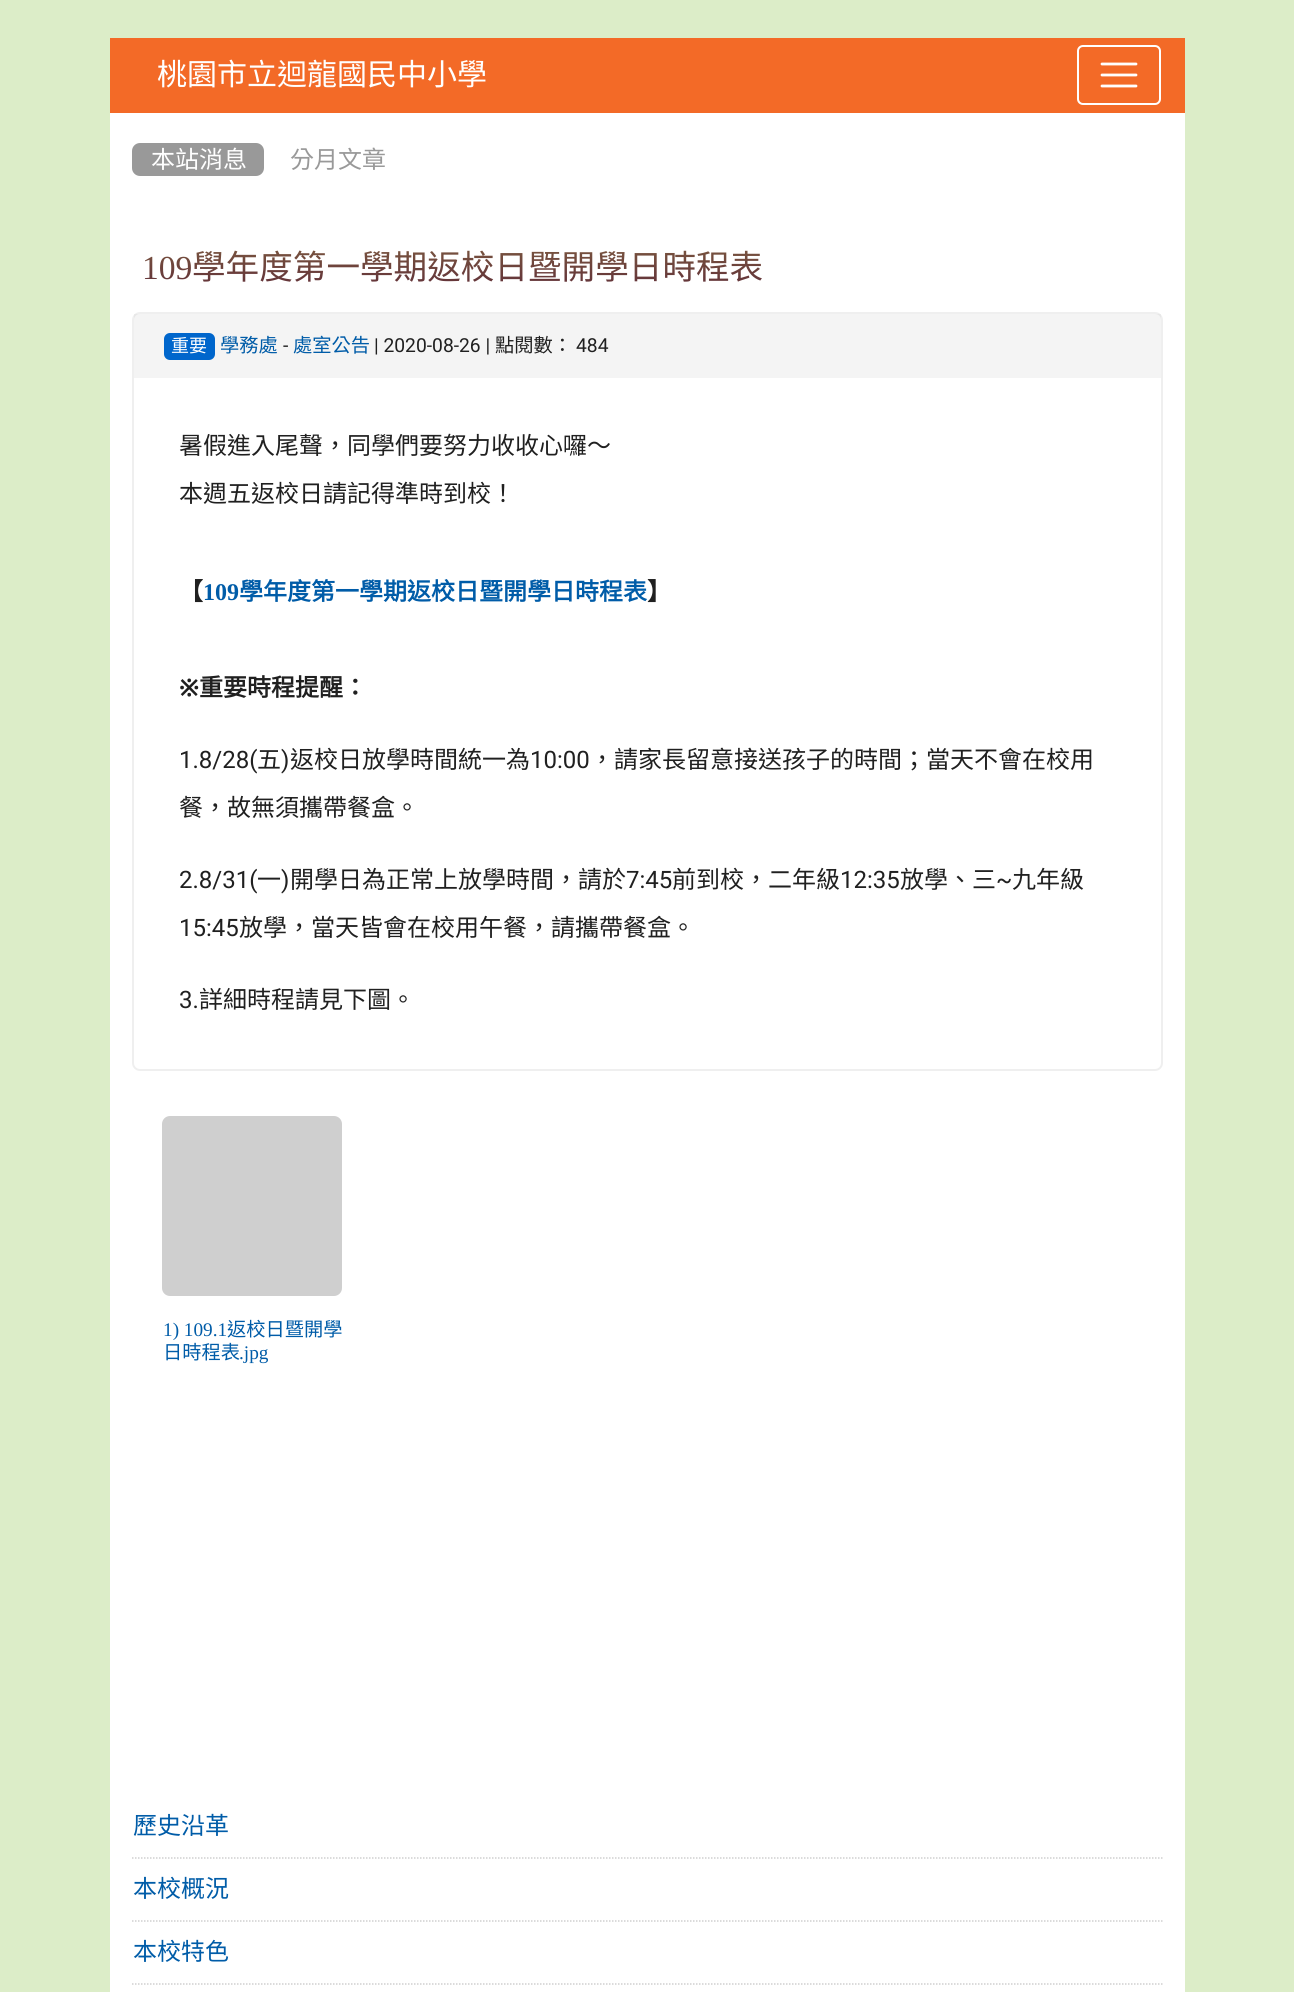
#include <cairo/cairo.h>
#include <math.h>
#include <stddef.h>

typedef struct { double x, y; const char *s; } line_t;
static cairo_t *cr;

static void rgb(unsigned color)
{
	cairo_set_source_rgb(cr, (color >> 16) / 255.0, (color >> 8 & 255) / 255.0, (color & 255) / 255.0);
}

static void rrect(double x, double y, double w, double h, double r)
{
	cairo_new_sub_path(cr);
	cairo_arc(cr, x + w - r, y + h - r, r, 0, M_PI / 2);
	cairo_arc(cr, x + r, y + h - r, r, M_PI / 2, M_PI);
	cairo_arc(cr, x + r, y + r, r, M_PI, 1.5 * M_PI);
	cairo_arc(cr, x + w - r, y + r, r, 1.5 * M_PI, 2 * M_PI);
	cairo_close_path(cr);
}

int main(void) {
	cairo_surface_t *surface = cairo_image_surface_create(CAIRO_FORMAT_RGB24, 1294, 1992);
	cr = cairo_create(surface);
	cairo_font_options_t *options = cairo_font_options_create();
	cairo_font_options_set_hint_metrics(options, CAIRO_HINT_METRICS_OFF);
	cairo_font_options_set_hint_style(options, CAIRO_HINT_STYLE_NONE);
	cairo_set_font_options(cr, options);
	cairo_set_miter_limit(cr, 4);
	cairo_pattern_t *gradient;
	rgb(0xdcedc8);
	cairo_paint(cr);
	rgb(0xf36a27);
	cairo_rectangle(cr, 110, 38, 1075, 75);
	cairo_fill(cr);
	rrect(1078, 46, 82, 58, 5);
	rgb(0xffffff);
	cairo_stroke(cr);
	cairo_new_path(cr);
	cairo_move_to(cr, 1102, 64);
	cairo_line_to(cr, 1136, 64);
	cairo_move_to(cr, 1102, 75);
	cairo_line_to(cr, 1136, 75);
	cairo_move_to(cr, 1102, 86);
	cairo_line_to(cr, 1136, 86);
	cairo_set_line_width(cr, 2.8);
	cairo_set_line_cap(cr, CAIRO_LINE_CAP_ROUND);
	cairo_stroke(cr);
	cairo_rectangle(cr, 110, 113, 1075, 1879);
	cairo_fill(cr);
	rgb(0x999999);
	rrect(132, 143, 132, 33, 8);
	cairo_fill(cr);
	rrect(133, 313, 1029, 757, 7);
	rgb(0xefefef);
	cairo_set_line_width(cr, 2);
	cairo_set_line_cap(cr, CAIRO_LINE_CAP_BUTT);
	cairo_stroke(cr);
	cairo_set_source_rgba(cr, 0.784, 0.784, 0.784, 0.2);
	cairo_rectangle(cr, 134, 314, 1027, 64);
	cairo_fill(cr);
	rgb(0x0066cc);
	rrect(164, 333, 51, 27, 6);
	cairo_fill(cr);
	rgb(0xcfcfcf);
	rrect(162, 1116, 180, 180, 8);
	cairo_fill(cr);
	cairo_new_path(cr);
	cairo_move_to(cr, 132, 1858);
	cairo_line_to(cr, 1162.5, 1858);
	cairo_set_line_width(cr, 1.5);
	cairo_set_dash(cr, (double[]){1.5, 1.5}, 2, 0);
	cairo_stroke(cr);
	cairo_new_path(cr);
	cairo_move_to(cr, 132, 1921);
	cairo_line_to(cr, 1162.5, 1921);
	cairo_stroke(cr);
	cairo_new_path(cr);
	cairo_move_to(cr, 132, 1984);
	cairo_line_to(cr, 1162.5, 1984);
	cairo_stroke(cr);
	cairo_select_font_face(cr, "Noto Sans CJK TC", CAIRO_FONT_SLANT_NORMAL, CAIRO_FONT_WEIGHT_NORMAL);
	cairo_set_font_size(cr, 30);
	rgb(0xffffff);
	cairo_move_to(cr, 157, 85);
	cairo_show_text(cr, "桃園市立迴龍國民中小學");
	cairo_set_font_size(cr, 24);
	cairo_move_to(cr, 151, 168);
	cairo_show_text(cr, "本站消息");
	rgb(0x999999);
	cairo_move_to(cr, 290, 168);
	cairo_show_text(cr, "分月文章");
	cairo_select_font_face(cr, "Liberation Serif", CAIRO_FONT_SLANT_NORMAL, CAIRO_FONT_WEIGHT_NORMAL);
	cairo_set_font_size(cr, 33.6);
	gradient = cairo_pattern_create_linear(647, 238, 647, 297);
	cairo_pattern_add_color_stop_rgba(gradient, 0, 0.494, 0.361, 0.251, 1);
	cairo_pattern_add_color_stop_rgba(gradient, 1, 0.361, 0.161, 0.22, 1);
	cairo_set_source(cr, gradient);
	cairo_pattern_destroy(gradient);
	cairo_move_to(cr, 142, 279);
	cairo_show_text(cr, "109");
	cairo_select_font_face(cr, "Noto Sans CJK TC", CAIRO_FONT_SLANT_NORMAL, CAIRO_FONT_WEIGHT_NORMAL);
	cairo_move_to(cr, 192, 279);
	cairo_show_text(cr, "學年度第一學期返校日暨開學日時程表");
	cairo_set_font_size(cr, 18);
	rgb(0xffffff);
	cairo_move_to(cr, 171, 352);
	cairo_show_text(cr, "重要");
	cairo_set_font_size(cr, 19.25);
	rgb(0x005ca8);
	cairo_move_to(cr, 220, 352);
	cairo_show_text(cr, "學務處");
	cairo_select_font_face(cr, "Roboto", CAIRO_FONT_SLANT_NORMAL, CAIRO_FONT_WEIGHT_NORMAL);
	rgb(0x202020);
	cairo_move_to(cr, 283, 352);
	cairo_show_text(cr, "-");
	cairo_select_font_face(cr, "Noto Sans CJK TC", CAIRO_FONT_SLANT_NORMAL, CAIRO_FONT_WEIGHT_NORMAL);
	rgb(0x005ca8);
	cairo_move_to(cr, 293, 352);
	cairo_show_text(cr, "處室公告");
	cairo_select_font_face(cr, "Roboto", CAIRO_FONT_SLANT_NORMAL, CAIRO_FONT_WEIGHT_NORMAL);
	rgb(0x202020);
	cairo_move_to(cr, 374, 352);
	cairo_show_text(cr, "| 2020-08-26 |");
	cairo_select_font_face(cr, "Noto Sans CJK TC", CAIRO_FONT_SLANT_NORMAL, CAIRO_FONT_WEIGHT_NORMAL);
	cairo_move_to(cr, 495, 352);
	cairo_show_text(cr, "點閱數：");
	cairo_select_font_face(cr, "Roboto", CAIRO_FONT_SLANT_NORMAL, CAIRO_FONT_WEIGHT_NORMAL);
	cairo_move_to(cr, 576, 352);
	cairo_show_text(cr, "484");
	cairo_select_font_face(cr, "Noto Sans CJK TC", CAIRO_FONT_SLANT_NORMAL, CAIRO_FONT_WEIGHT_NORMAL);
	cairo_set_font_size(cr, 24);
	cairo_move_to(cr, 179, 454);
	cairo_show_text(cr, "暑假進入尾聲，同學們要努力收收心囉～");
	cairo_move_to(cr, 179, 502);
	cairo_show_text(cr, "本週五返校日請記得準時到校！");
	cairo_select_font_face(cr, "Noto Sans CJK TC", CAIRO_FONT_SLANT_NORMAL, CAIRO_FONT_WEIGHT_BOLD);
	cairo_move_to(cr, 179, 600);
	cairo_show_text(cr, "【");
	cairo_select_font_face(cr, "Liberation Serif", CAIRO_FONT_SLANT_NORMAL, CAIRO_FONT_WEIGHT_BOLD);
	rgb(0x005ca8);
	cairo_move_to(cr, 203, 600);
	cairo_show_text(cr, "109");
	cairo_select_font_face(cr, "Noto Sans CJK TC", CAIRO_FONT_SLANT_NORMAL, CAIRO_FONT_WEIGHT_BOLD);
	cairo_move_to(cr, 239, 600);
	cairo_show_text(cr, "學年度第一學期返校日暨開學日時程表");
	rgb(0x202020);
	cairo_move_to(cr, 647, 600);
	cairo_show_text(cr, "】");
	cairo_select_font_face(cr, "Noto Sans", CAIRO_FONT_SLANT_NORMAL, CAIRO_FONT_WEIGHT_BOLD);
	cairo_move_to(cr, 179, 696);
	cairo_show_text(cr, "※");
	cairo_select_font_face(cr, "Noto Sans CJK TC", CAIRO_FONT_SLANT_NORMAL, CAIRO_FONT_WEIGHT_BOLD);
	cairo_move_to(cr, 199, 696);
	cairo_show_text(cr, "重要時程提醒：");
	cairo_select_font_face(cr, "Roboto", CAIRO_FONT_SLANT_NORMAL, CAIRO_FONT_WEIGHT_NORMAL);
	cairo_move_to(cr, 179, 768);
	cairo_show_text(cr, "1.8/28(");
	cairo_select_font_face(cr, "Noto Sans CJK TC", CAIRO_FONT_SLANT_NORMAL, CAIRO_FONT_WEIGHT_NORMAL);
	cairo_move_to(cr, 257, 768);
	cairo_show_text(cr, "五");
	cairo_select_font_face(cr, "Roboto", CAIRO_FONT_SLANT_NORMAL, CAIRO_FONT_WEIGHT_NORMAL);
	cairo_move_to(cr, 281, 768);
	cairo_show_text(cr, ")");
	cairo_select_font_face(cr, "Noto Sans CJK TC", CAIRO_FONT_SLANT_NORMAL, CAIRO_FONT_WEIGHT_NORMAL);
	cairo_move_to(cr, 290, 768);
	cairo_show_text(cr, "返校日放學時間統一為");
	cairo_select_font_face(cr, "Roboto", CAIRO_FONT_SLANT_NORMAL, CAIRO_FONT_WEIGHT_NORMAL);
	cairo_move_to(cr, 530, 768);
	cairo_show_text(cr, "10:00");
	cairo_select_font_face(cr, "Noto Sans CJK TC", CAIRO_FONT_SLANT_NORMAL, CAIRO_FONT_WEIGHT_NORMAL);
	cairo_move_to(cr, 590, 768);
	cairo_show_text(cr, "，請家長留意接送孩子的時間；當天不會在校用");
	cairo_move_to(cr, 179, 816);
	cairo_show_text(cr, "餐，故無須攜帶餐盒。");
	cairo_select_font_face(cr, "Roboto", CAIRO_FONT_SLANT_NORMAL, CAIRO_FONT_WEIGHT_NORMAL);
	cairo_move_to(cr, 179, 888);
	cairo_show_text(cr, "2.8/31(");
	cairo_select_font_face(cr, "Noto Sans CJK TC", CAIRO_FONT_SLANT_NORMAL, CAIRO_FONT_WEIGHT_NORMAL);
	cairo_move_to(cr, 257, 888);
	cairo_show_text(cr, "一");
	cairo_select_font_face(cr, "Roboto", CAIRO_FONT_SLANT_NORMAL, CAIRO_FONT_WEIGHT_NORMAL);
	cairo_move_to(cr, 281, 888);
	cairo_show_text(cr, ")");
	cairo_select_font_face(cr, "Noto Sans CJK TC", CAIRO_FONT_SLANT_NORMAL, CAIRO_FONT_WEIGHT_NORMAL);
	cairo_move_to(cr, 290, 888);
	cairo_show_text(cr, "開學日為正常上放學時間，請於");
	cairo_select_font_face(cr, "Roboto", CAIRO_FONT_SLANT_NORMAL, CAIRO_FONT_WEIGHT_NORMAL);
	cairo_move_to(cr, 626, 888);
	cairo_show_text(cr, "7:45");
	cairo_select_font_face(cr, "Noto Sans CJK TC", CAIRO_FONT_SLANT_NORMAL, CAIRO_FONT_WEIGHT_NORMAL);
	cairo_move_to(cr, 672, 888);
	cairo_show_text(cr, "前到校，二年級");
	cairo_select_font_face(cr, "Roboto", CAIRO_FONT_SLANT_NORMAL, CAIRO_FONT_WEIGHT_NORMAL);
	cairo_move_to(cr, 840, 888);
	cairo_show_text(cr, "12:35");
	cairo_select_font_face(cr, "Noto Sans CJK TC", CAIRO_FONT_SLANT_NORMAL, CAIRO_FONT_WEIGHT_NORMAL);
	cairo_move_to(cr, 900, 888);
	cairo_show_text(cr, "放學、三");
	cairo_select_font_face(cr, "Roboto", CAIRO_FONT_SLANT_NORMAL, CAIRO_FONT_WEIGHT_NORMAL);
	cairo_move_to(cr, 996, 888);
	cairo_show_text(cr, "~");
	cairo_select_font_face(cr, "Noto Sans CJK TC", CAIRO_FONT_SLANT_NORMAL, CAIRO_FONT_WEIGHT_NORMAL);
	cairo_move_to(cr, 1012, 888);
	cairo_show_text(cr, "九年級");
	cairo_select_font_face(cr, "Roboto", CAIRO_FONT_SLANT_NORMAL, CAIRO_FONT_WEIGHT_NORMAL);
	cairo_move_to(cr, 179, 936);
	cairo_show_text(cr, "15:45");
	cairo_select_font_face(cr, "Noto Sans CJK TC", CAIRO_FONT_SLANT_NORMAL, CAIRO_FONT_WEIGHT_NORMAL);
	cairo_move_to(cr, 239, 936);
	cairo_show_text(cr, "放學，當天皆會在校用午餐，請攜帶餐盒。");
	cairo_select_font_face(cr, "Roboto", CAIRO_FONT_SLANT_NORMAL, CAIRO_FONT_WEIGHT_NORMAL);
	cairo_move_to(cr, 179, 1008);
	cairo_show_text(cr, "3.");
	cairo_select_font_face(cr, "Noto Sans CJK TC", CAIRO_FONT_SLANT_NORMAL, CAIRO_FONT_WEIGHT_NORMAL);
	cairo_move_to(cr, 199, 1008);
	cairo_show_text(cr, "詳細時程請見下圖。");
	cairo_select_font_face(cr, "Liberation Serif", CAIRO_FONT_SLANT_NORMAL, CAIRO_FONT_WEIGHT_NORMAL);
	cairo_set_font_size(cr, 19.25);
	rgb(0x005ca8);
	cairo_move_to(cr, 163, 1336);
	cairo_show_text(cr, "1) 109.1");
	cairo_select_font_face(cr, "Noto Sans CJK TC", CAIRO_FONT_SLANT_NORMAL, CAIRO_FONT_WEIGHT_NORMAL);
	cairo_move_to(cr, 227, 1336);
	cairo_show_text(cr, "返校日暨開學");
	cairo_move_to(cr, 163, 1359);
	cairo_show_text(cr, "日時程表");
	cairo_select_font_face(cr, "Liberation Serif", CAIRO_FONT_SLANT_NORMAL, CAIRO_FONT_WEIGHT_NORMAL);
	cairo_move_to(cr, 239, 1359);
	cairo_show_text(cr, ".jpg");
	cairo_select_font_face(cr, "Noto Sans CJK TC", CAIRO_FONT_SLANT_NORMAL, CAIRO_FONT_WEIGHT_NORMAL);
	cairo_set_font_size(cr, 24);
	{
		static const line_t items[] = {
			{133, 1834, "歷史沿革"},
			{133, 1897, "本校概況"},
			{133, 1960, "本校特色"},
		};
		for (size_t i = 0; i < sizeof items / sizeof *items; i++) {
			cairo_move_to(cr, items[i].x, items[i].y);
			cairo_show_text(cr, items[i].s);
		}
	}
	cairo_surface_write_to_png(surface, "page.png");
	cairo_font_options_destroy(options);
	cairo_destroy(cr);
	cairo_surface_destroy(surface);
	return 0;
}
